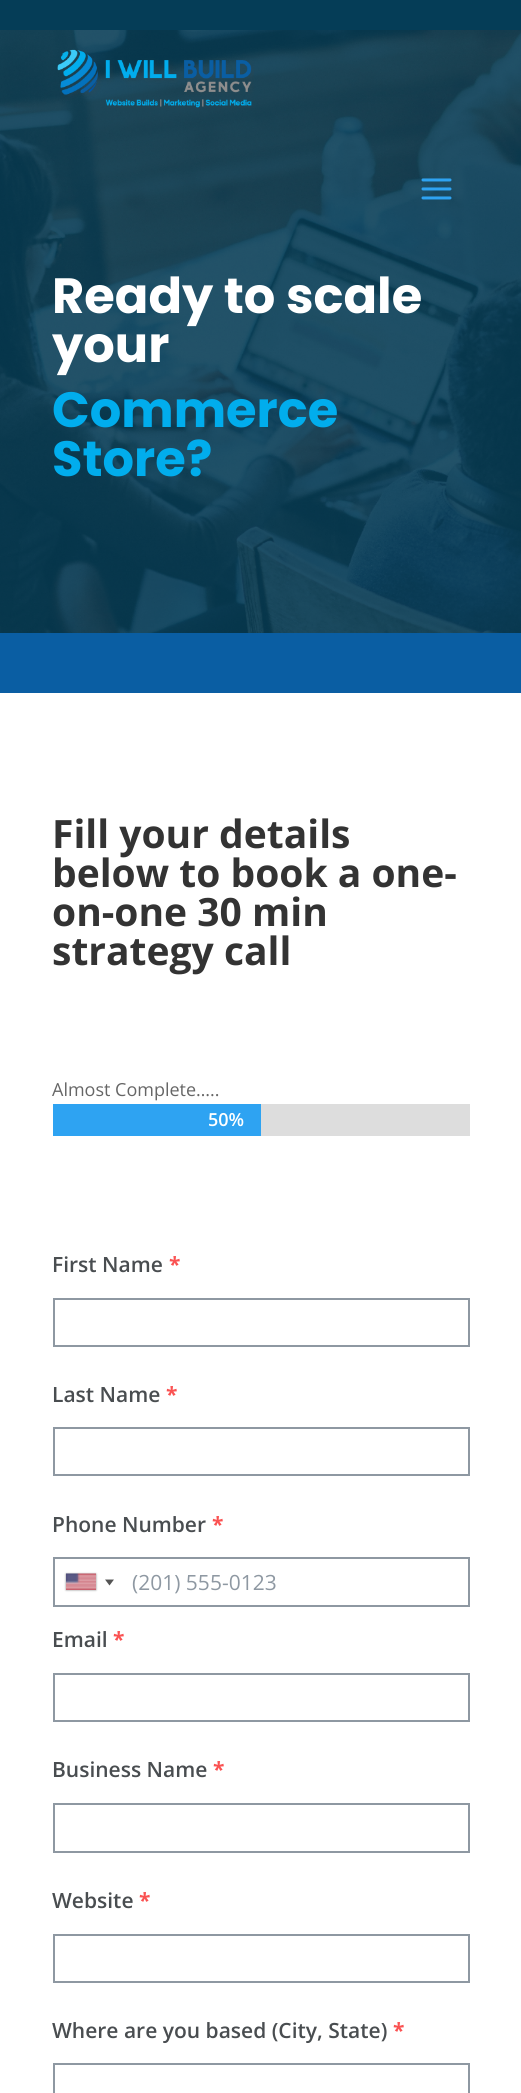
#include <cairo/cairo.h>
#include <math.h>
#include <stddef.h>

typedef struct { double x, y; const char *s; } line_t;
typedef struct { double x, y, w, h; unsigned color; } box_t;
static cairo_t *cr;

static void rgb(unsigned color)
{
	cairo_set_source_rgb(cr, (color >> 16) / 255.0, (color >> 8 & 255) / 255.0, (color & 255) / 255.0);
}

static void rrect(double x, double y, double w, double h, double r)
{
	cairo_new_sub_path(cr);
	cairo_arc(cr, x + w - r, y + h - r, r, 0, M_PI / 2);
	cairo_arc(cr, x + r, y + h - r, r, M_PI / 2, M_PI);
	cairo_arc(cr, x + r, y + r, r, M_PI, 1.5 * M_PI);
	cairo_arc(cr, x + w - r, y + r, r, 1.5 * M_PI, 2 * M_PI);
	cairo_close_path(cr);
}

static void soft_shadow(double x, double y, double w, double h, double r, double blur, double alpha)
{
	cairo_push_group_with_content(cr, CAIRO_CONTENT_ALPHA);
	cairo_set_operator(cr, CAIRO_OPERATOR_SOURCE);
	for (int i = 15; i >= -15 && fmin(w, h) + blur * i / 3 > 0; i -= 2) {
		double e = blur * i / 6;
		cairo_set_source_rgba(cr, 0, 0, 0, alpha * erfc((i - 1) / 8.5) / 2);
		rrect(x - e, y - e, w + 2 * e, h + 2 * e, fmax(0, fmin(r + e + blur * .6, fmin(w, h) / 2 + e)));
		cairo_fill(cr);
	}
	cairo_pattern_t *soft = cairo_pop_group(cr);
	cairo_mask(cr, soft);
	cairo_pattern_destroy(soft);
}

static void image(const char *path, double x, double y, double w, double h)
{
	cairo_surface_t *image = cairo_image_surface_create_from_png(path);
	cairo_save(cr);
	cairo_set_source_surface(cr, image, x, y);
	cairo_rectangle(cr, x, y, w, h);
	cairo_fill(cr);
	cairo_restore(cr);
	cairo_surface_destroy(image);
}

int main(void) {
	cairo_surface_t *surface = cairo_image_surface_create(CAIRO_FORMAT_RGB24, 521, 2093);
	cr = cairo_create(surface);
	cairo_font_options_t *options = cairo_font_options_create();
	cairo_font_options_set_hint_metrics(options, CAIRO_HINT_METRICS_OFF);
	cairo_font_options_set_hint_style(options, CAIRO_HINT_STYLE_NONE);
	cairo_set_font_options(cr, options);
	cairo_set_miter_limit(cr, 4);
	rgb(0xffffff);
	cairo_paint(cr);
	rgb(0x053d57);
	cairo_rectangle(cr, 0, 0, 521, 30);
	cairo_fill(cr);
	image("img/3.png", 0, 30, 521, 603);
	image("img/1.png", 57, 49, 197, 59);
	image("img/2.png", 421, 178, 31, 22);
	{
		static const box_t items[] = {
			{0, 633, 521, 60, 0x0a5ea3},
			{261, 1104, 209, 32, 0xdddddd},
			{53, 1104, 208, 32, 0x2ea3f2},
		};
		for (size_t i = 0; i < sizeof items / sizeof *items; i++) {
			rgb(items[i].color);
			cairo_rectangle(cr, items[i].x, items[i].y, items[i].w, items[i].h);
			cairo_fill(cr);
		}
	}
	cairo_rectangle(cr, 54, 1299, 415, 47);
	rgb(0x8e98a2);
	cairo_stroke(cr);
	cairo_rectangle(cr, 54, 1428, 415, 47);
	cairo_stroke(cr);
	cairo_rectangle(cr, 54, 1558, 415, 48);
	cairo_stroke(cr);
	rgb(0x888888);
	soft_shadow(66, 1574, 30, 16, 0, 1, 1);
	image("img/4.png", 66, 1573, 30, 17);
	rgb(0x555555);
	cairo_new_path(cr);
	cairo_move_to(cr, 105, 1579.5);
	cairo_line_to(cr, 114, 1579.5);
	cairo_line_to(cr, 109.5, 1585.5);
	cairo_close_path(cr);
	cairo_fill(cr);
	cairo_rectangle(cr, 54, 1674, 415, 47);
	rgb(0x8e98a2);
	cairo_stroke(cr);
	cairo_rectangle(cr, 54, 1804, 415, 48);
	cairo_stroke(cr);
	cairo_rectangle(cr, 54, 1935, 415, 47);
	cairo_stroke(cr);
	cairo_rectangle(cr, 54, 2064, 415, 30);
	cairo_stroke(cr);
	cairo_select_font_face(cr, "Poppins", CAIRO_FONT_SLANT_NORMAL, CAIRO_FONT_WEIGHT_BOLD);
	cairo_set_font_size(cr, 49.5);
	rgb(0xffffff);
	cairo_move_to(cr, 52, 313);
	cairo_show_text(cr, "Ready to scale");
	cairo_move_to(cr, 52, 362);
	cairo_show_text(cr, "your");
	rgb(0x01aded);
	cairo_move_to(cr, 52, 427);
	cairo_show_text(cr, "Commerce");
	cairo_move_to(cr, 52, 476);
	cairo_show_text(cr, "Store?");
	cairo_select_font_face(cr, "Open Sans", CAIRO_FONT_SLANT_NORMAL, CAIRO_FONT_WEIGHT_BOLD);
	cairo_set_font_size(cr, 39);
	rgb(0x333333);
	{
		static const line_t items[] = {
			{52, 848, "Fill your details"},
			{52, 887, "below to book a one-"},
			{52, 926, "on-one 30 min"},
			{52, 965, "strategy call"},
		};
		for (size_t i = 0; i < sizeof items / sizeof *items; i++) {
			cairo_move_to(cr, items[i].x, items[i].y);
			cairo_show_text(cr, items[i].s);
		}
	}
	cairo_select_font_face(cr, "Open Sans", CAIRO_FONT_SLANT_NORMAL, CAIRO_FONT_WEIGHT_NORMAL);
	cairo_set_font_size(cr, 18);
	rgb(0x666666);
	cairo_move_to(cr, 52, 1096);
	cairo_show_text(cr, "Almost Complete…..");
	cairo_select_font_face(cr, "Open Sans SemiBold", CAIRO_FONT_SLANT_NORMAL, CAIRO_FONT_WEIGHT_NORMAL);
	rgb(0xffffff);
	cairo_move_to(cr, 208, 1126);
	cairo_show_text(cr, "50%");
	cairo_set_font_size(cr, 21);
	rgb(0x494d50);
	cairo_move_to(cr, 52, 1272);
	cairo_show_text(cr, "First Name");
	cairo_select_font_face(cr, "Open Sans", CAIRO_FONT_SLANT_NORMAL, CAIRO_FONT_WEIGHT_BOLD);
	rgb(0xfa5252);
	cairo_move_to(cr, 169, 1272);
	cairo_show_text(cr, "*");
	cairo_select_font_face(cr, "Open Sans SemiBold", CAIRO_FONT_SLANT_NORMAL, CAIRO_FONT_WEIGHT_NORMAL);
	rgb(0x494d50);
	cairo_move_to(cr, 52, 1402);
	cairo_show_text(cr, "Last Name");
	cairo_select_font_face(cr, "Open Sans", CAIRO_FONT_SLANT_NORMAL, CAIRO_FONT_WEIGHT_BOLD);
	rgb(0xfa5252);
	cairo_move_to(cr, 166, 1402);
	cairo_show_text(cr, "*");
	cairo_select_font_face(cr, "Open Sans SemiBold", CAIRO_FONT_SLANT_NORMAL, CAIRO_FONT_WEIGHT_NORMAL);
	rgb(0x494d50);
	cairo_move_to(cr, 52, 1532);
	cairo_show_text(cr, "Phone Number");
	cairo_select_font_face(cr, "Open Sans", CAIRO_FONT_SLANT_NORMAL, CAIRO_FONT_WEIGHT_BOLD);
	rgb(0xfa5252);
	cairo_move_to(cr, 212, 1532);
	cairo_show_text(cr, "*");
	cairo_select_font_face(cr, "Open Sans", CAIRO_FONT_SLANT_NORMAL, CAIRO_FONT_WEIGHT_NORMAL);
	rgb(0x8e98a2);
	cairo_move_to(cr, 132, 1590);
	cairo_show_text(cr, "(201) 555-0123");
	cairo_select_font_face(cr, "Open Sans SemiBold", CAIRO_FONT_SLANT_NORMAL, CAIRO_FONT_WEIGHT_NORMAL);
	rgb(0x494d50);
	cairo_move_to(cr, 52, 1647);
	cairo_show_text(cr, "Email");
	cairo_select_font_face(cr, "Open Sans", CAIRO_FONT_SLANT_NORMAL, CAIRO_FONT_WEIGHT_BOLD);
	rgb(0xfa5252);
	cairo_move_to(cr, 113, 1647);
	cairo_show_text(cr, "*");
	cairo_select_font_face(cr, "Open Sans SemiBold", CAIRO_FONT_SLANT_NORMAL, CAIRO_FONT_WEIGHT_NORMAL);
	rgb(0x494d50);
	cairo_move_to(cr, 52, 1777);
	cairo_show_text(cr, "Business Name");
	cairo_select_font_face(cr, "Open Sans", CAIRO_FONT_SLANT_NORMAL, CAIRO_FONT_WEIGHT_BOLD);
	rgb(0xfa5252);
	cairo_move_to(cr, 213, 1777);
	cairo_show_text(cr, "*");
	cairo_select_font_face(cr, "Open Sans SemiBold", CAIRO_FONT_SLANT_NORMAL, CAIRO_FONT_WEIGHT_NORMAL);
	rgb(0x494d50);
	cairo_move_to(cr, 52, 1908);
	cairo_show_text(cr, "Website");
	cairo_select_font_face(cr, "Open Sans", CAIRO_FONT_SLANT_NORMAL, CAIRO_FONT_WEIGHT_BOLD);
	rgb(0xfa5252);
	cairo_move_to(cr, 139, 1908);
	cairo_show_text(cr, "*");
	cairo_select_font_face(cr, "Open Sans SemiBold", CAIRO_FONT_SLANT_NORMAL, CAIRO_FONT_WEIGHT_NORMAL);
	rgb(0x494d50);
	cairo_move_to(cr, 52, 2038);
	cairo_show_text(cr, "Where are you based (City, State)");
	cairo_select_font_face(cr, "Open Sans", CAIRO_FONT_SLANT_NORMAL, CAIRO_FONT_WEIGHT_BOLD);
	rgb(0xfa5252);
	cairo_move_to(cr, 393, 2038);
	cairo_show_text(cr, "*");
	cairo_surface_write_to_png(surface, "page.png");
	cairo_font_options_destroy(options);
	cairo_destroy(cr);
	cairo_surface_destroy(surface);
	return 0;
}
